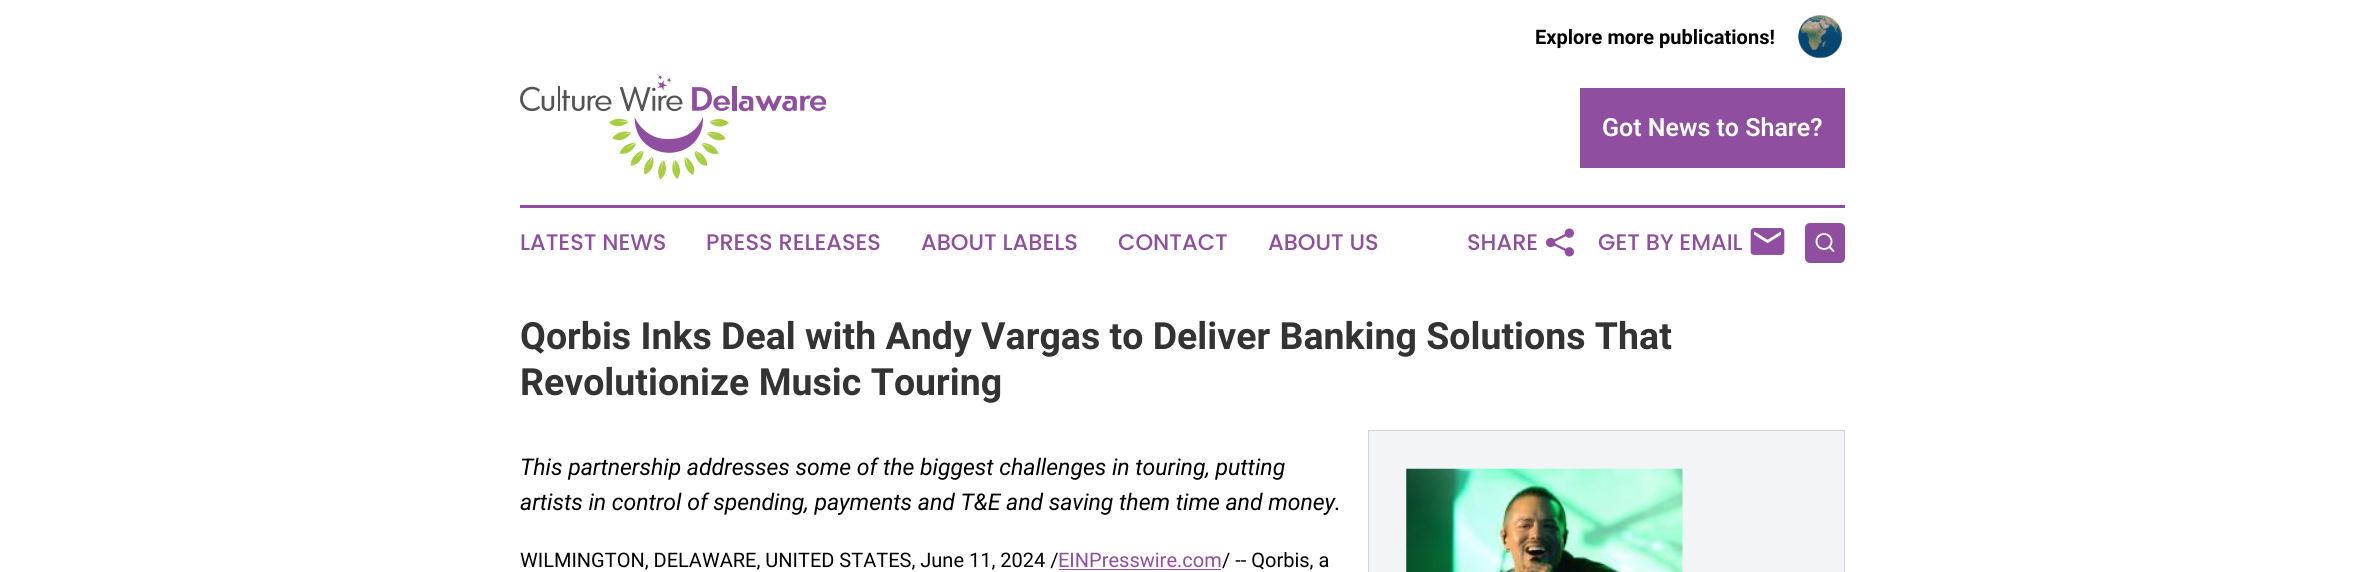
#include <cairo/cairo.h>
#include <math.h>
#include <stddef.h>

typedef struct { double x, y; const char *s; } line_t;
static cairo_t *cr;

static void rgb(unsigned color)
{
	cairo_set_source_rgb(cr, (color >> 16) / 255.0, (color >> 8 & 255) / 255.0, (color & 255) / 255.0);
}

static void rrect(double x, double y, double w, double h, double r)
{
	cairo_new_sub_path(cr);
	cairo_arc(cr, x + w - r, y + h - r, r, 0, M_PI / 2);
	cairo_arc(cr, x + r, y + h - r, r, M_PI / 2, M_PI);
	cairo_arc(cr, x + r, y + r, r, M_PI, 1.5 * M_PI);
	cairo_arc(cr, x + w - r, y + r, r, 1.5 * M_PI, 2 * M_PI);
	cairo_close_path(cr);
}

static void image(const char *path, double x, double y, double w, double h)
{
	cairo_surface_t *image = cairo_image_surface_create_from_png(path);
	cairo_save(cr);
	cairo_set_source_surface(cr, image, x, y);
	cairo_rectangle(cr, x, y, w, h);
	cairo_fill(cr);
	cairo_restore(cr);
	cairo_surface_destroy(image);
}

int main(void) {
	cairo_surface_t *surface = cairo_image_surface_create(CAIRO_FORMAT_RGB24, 2365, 572);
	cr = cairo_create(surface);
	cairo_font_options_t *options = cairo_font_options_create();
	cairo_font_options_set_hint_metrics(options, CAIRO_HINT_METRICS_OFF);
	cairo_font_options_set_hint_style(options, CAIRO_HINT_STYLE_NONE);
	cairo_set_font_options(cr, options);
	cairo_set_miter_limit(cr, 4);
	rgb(0xffffff);
	cairo_paint(cr);
	image("img/1.png", 1798, 15, 45, 44);
	image("img/2.png", 520, 75, 306, 105);
	rgb(0x8f4e9f);
	cairo_rectangle(cr, 1580, 88, 265, 80);
	cairo_fill(cr);
	cairo_rectangle(cr, 520, 205, 1325, 3);
	cairo_fill(cr);
	image("img/3.png", 1546, 228, 28, 29);
	image("img/4.png", 1750, 228, 35, 27);
	rrect(1805, 223, 40, 40, 5);
	cairo_fill(cr);
	cairo_arc(cr, 1824, 241.5, 7.5, 0, 2 * M_PI);
	rgb(0xffffff);
	cairo_set_line_width(cr, 1.9);
	cairo_stroke(cr);
	cairo_new_path(cr);
	cairo_move_to(cr, 1833.5, 251);
	cairo_line_to(cr, 1829.5, 247);
	cairo_set_line_cap(cr, CAIRO_LINE_CAP_ROUND);
	cairo_set_line_join(cr, CAIRO_LINE_JOIN_ROUND);
	cairo_stroke(cr);
	rgb(0xf3f4f6);
	cairo_rectangle(cr, 1368.5, 430.5, 476, 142);
	cairo_fill_preserve(cr);
	rgb(0xd1d5db);
	cairo_set_line_width(cr, 1);
	cairo_set_line_cap(cr, CAIRO_LINE_CAP_BUTT);
	cairo_set_line_join(cr, CAIRO_LINE_JOIN_MITER);
	cairo_stroke(cr);
	image("img/5.png", 1406, 468, 277, 104);
	rgb(0x8f4e9f);
	cairo_rectangle(cr, 1059, 569, 162, 1);
	cairo_fill(cr);
	cairo_select_font_face(cr, "Roboto", CAIRO_FONT_SLANT_NORMAL, CAIRO_FONT_WEIGHT_BOLD);
	cairo_set_font_size(cr, 20);
	rgb(0x000000);
	cairo_move_to(cr, 1535, 44);
	cairo_show_text(cr, "Explore more publications!");
	cairo_select_font_face(cr, "Roboto SemiBold", CAIRO_FONT_SLANT_NORMAL, CAIRO_FONT_WEIGHT_NORMAL);
	cairo_set_font_size(cr, 25);
	rgb(0xffffff);
	cairo_move_to(cr, 1602, 136);
	cairo_show_text(cr, "Got News to Share?");
	cairo_select_font_face(cr, "Poppins Medium", CAIRO_FONT_SLANT_NORMAL, CAIRO_FONT_WEIGHT_NORMAL);
	cairo_set_font_size(cr, 22.5);
	rgb(0x8f4e9f);
	{
		static const line_t items[] = {
			{520, 250, "LATEST NEWS"},
			{706, 250, "PRESS RELEASES"},
			{921, 250, "ABOUT LABELS"},
			{1118, 250, "CONTACT"},
			{1268, 250, "ABOUT US"},
			{1467, 250, "SHARE"},
			{1598, 250, "GET BY EMAIL"},
		};
		for (size_t i = 0; i < sizeof items / sizeof *items; i++) {
			cairo_move_to(cr, items[i].x, items[i].y);
			cairo_show_text(cr, items[i].s);
		}
	}
	cairo_select_font_face(cr, "Roboto", CAIRO_FONT_SLANT_NORMAL, CAIRO_FONT_WEIGHT_BOLD);
	cairo_set_font_size(cr, 37.5);
	rgb(0x333333);
	cairo_move_to(cr, 520, 349);
	cairo_show_text(cr, "Qorbis Inks Deal with Andy Vargas to Deliver Banking Solutions That");
	cairo_move_to(cr, 520, 395);
	cairo_show_text(cr, "Revolutionize Music Touring");
	cairo_select_font_face(cr, "Roboto", CAIRO_FONT_SLANT_ITALIC, CAIRO_FONT_WEIGHT_NORMAL);
	cairo_set_font_size(cr, 23);
	rgb(0x000000);
	cairo_move_to(cr, 520, 475);
	cairo_show_text(cr, "This partnership addresses some of the biggest challenges in touring, putting");
	cairo_move_to(cr, 520, 510);
	cairo_show_text(cr, "artists in control of spending, payments and T&E and saving them time and money.");
	cairo_select_font_face(cr, "Roboto", CAIRO_FONT_SLANT_NORMAL, CAIRO_FONT_WEIGHT_NORMAL);
	cairo_set_font_size(cr, 20);
	cairo_move_to(cr, 520, 567);
	cairo_show_text(cr, "WILMINGTON, DELAWARE, UNITED STATES, June 11, 2024 /");
	rgb(0x8f4e9f);
	cairo_move_to(cr, 1058, 567);
	cairo_show_text(cr, "EINPresswire.com");
	rgb(0x000000);
	cairo_move_to(cr, 1222, 567);
	cairo_show_text(cr, "/ -- Qorbis, a");
	cairo_surface_write_to_png(surface, "page.png");
	cairo_font_options_destroy(options);
	cairo_destroy(cr);
	cairo_surface_destroy(surface);
	return 0;
}
